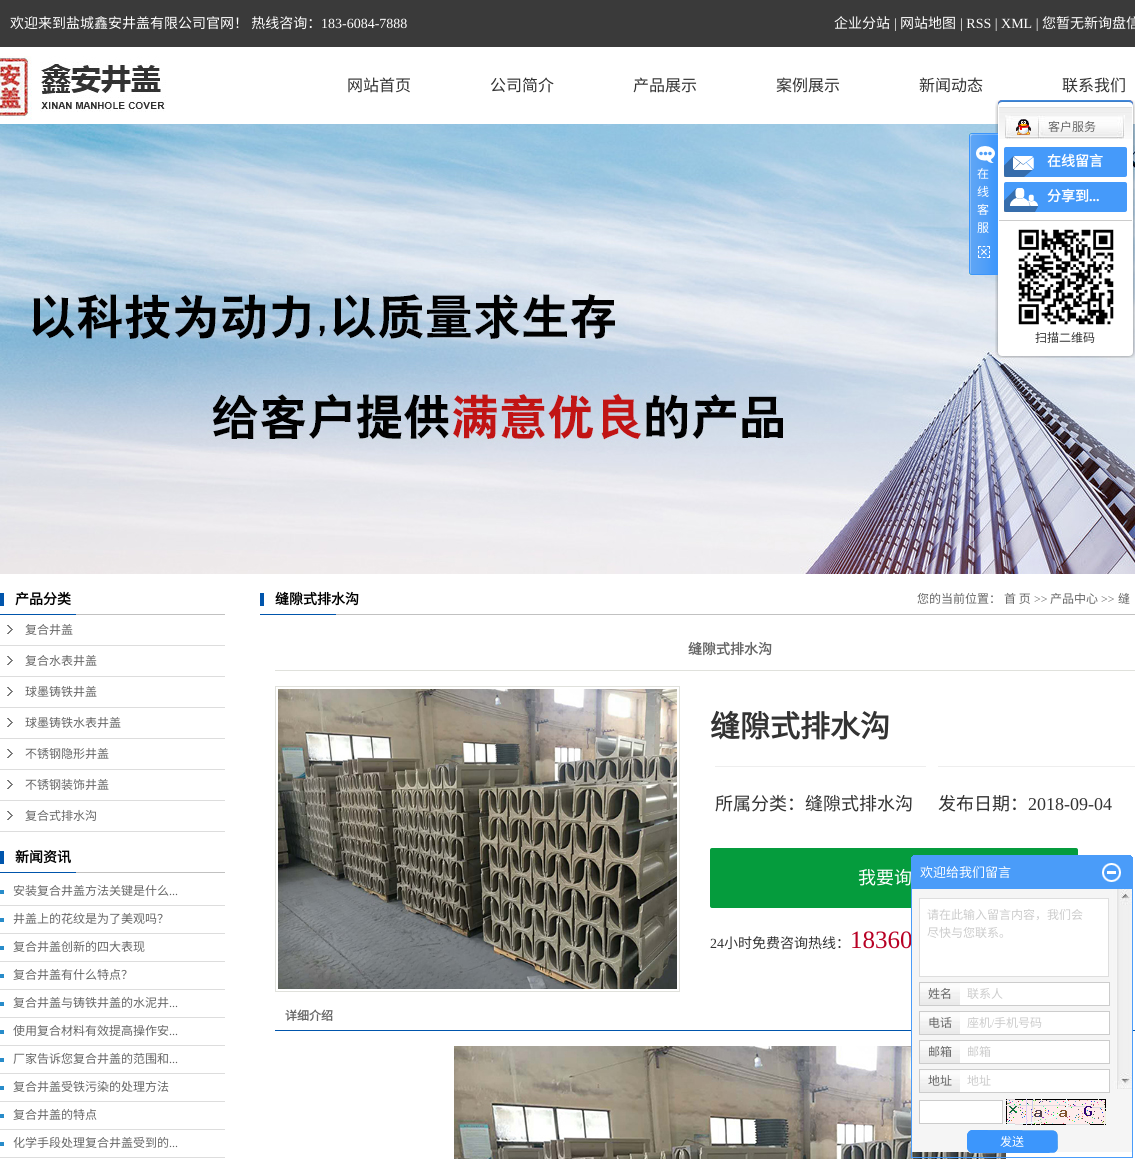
#include <cairo/cairo.h>
#include <math.h>
#include <stddef.h>

typedef struct { double x, y; const char *s; } line_t;
typedef struct { double x, y, w, h; unsigned color; } box_t;
static cairo_t *cr;

static void rgb(unsigned color)
{
	cairo_set_source_rgb(cr, (color >> 16) / 255.0, (color >> 8 & 255) / 255.0, (color & 255) / 255.0);
}

static void rrect(double x, double y, double w, double h, double r)
{
	cairo_new_sub_path(cr);
	cairo_arc(cr, x + w - r, y + h - r, r, 0, M_PI / 2);
	cairo_arc(cr, x + r, y + h - r, r, M_PI / 2, M_PI);
	cairo_arc(cr, x + r, y + r, r, M_PI, 1.5 * M_PI);
	cairo_arc(cr, x + w - r, y + r, r, 1.5 * M_PI, 2 * M_PI);
	cairo_close_path(cr);
}

static void image(const char *path, double x, double y, double w, double h)
{
	cairo_surface_t *image = cairo_image_surface_create_from_png(path);
	cairo_save(cr);
	cairo_set_source_surface(cr, image, x, y);
	cairo_rectangle(cr, x, y, w, h);
	cairo_fill(cr);
	cairo_restore(cr);
	cairo_surface_destroy(image);
}

int main(void) {
	cairo_surface_t *surface = cairo_image_surface_create(CAIRO_FORMAT_RGB24, 1135, 1159);
	cr = cairo_create(surface);
	cairo_font_options_t *options = cairo_font_options_create();
	cairo_font_options_set_hint_metrics(options, CAIRO_HINT_METRICS_OFF);
	cairo_font_options_set_hint_style(options, CAIRO_HINT_STYLE_NONE);
	cairo_set_font_options(cr, options);
	cairo_set_miter_limit(cr, 4);
	rgb(0xffffff);
	cairo_paint(cr);
	rgb(0x3a3a3a);
	cairo_rectangle(cr, 0, 0, 1135, 47);
	cairo_fill(cr);
	image("img/1.png", 0, 56, 166, 64);
	image("img/13.png", 0, 124, 1135, 450);
	image("img/5.png", 995, 107, 140, 243);
	image("img/2.png", 969, 133, 29, 142);
	image("img/3.png", 978, 246, 12, 12);
	image("img/4.png", 995, 100, 140, 7);
	image("img/6.png", 999, 107, 133, 32);
	image("img/7.png", 1005, 115, 120, 24);
	image("img/8.png", 1016, 119, 15, 16);
	rgb(0x459afa);
	rrect(1004, 147, 123, 30, 2);
	cairo_fill(cr);
	image("img/9.png", 1004, 156, 30, 21);
	rrect(1004, 182, 123, 30, 2);
	cairo_fill(cr);
	image("img/10.png", 1004, 188, 34, 24);
	rgb(0xcccccc);
	cairo_rectangle(cr, 999, 220, 133, 1);
	cairo_fill(cr);
	image("img/11.png", 1018, 229, 96, 96);
	image("img/12.png", 995, 350, 140, 8);
	image("img/14.png", 0, 593, 225, 22);
	image("img/15.png", 7, 625, 6, 9);
	rgb(0xdddddd);
	cairo_rectangle(cr, 0, 645, 225, 1);
	cairo_fill(cr);
	image("img/15.png", 7, 656, 6, 9);
	cairo_rectangle(cr, 0, 676, 225, 1);
	cairo_fill(cr);
	image("img/15.png", 7, 687, 6, 9);
	cairo_rectangle(cr, 0, 707, 225, 1);
	cairo_fill(cr);
	image("img/15.png", 7, 718, 6, 9);
	cairo_rectangle(cr, 0, 738, 225, 1);
	cairo_fill(cr);
	image("img/15.png", 7, 749, 6, 9);
	cairo_rectangle(cr, 0, 769, 225, 1);
	cairo_fill(cr);
	image("img/15.png", 7, 780, 6, 9);
	cairo_rectangle(cr, 0, 800, 225, 1);
	cairo_fill(cr);
	image("img/15.png", 7, 811, 6, 9);
	cairo_rectangle(cr, 0, 831, 225, 1);
	cairo_fill(cr);
	image("img/14.png", 0, 851, 225, 22);
	image("img/16.png", 0, 890, 4, 4);
	cairo_rectangle(cr, 0, 905, 225, 1);
	cairo_fill(cr);
	image("img/16.png", 0, 918, 4, 4);
	cairo_rectangle(cr, 0, 933, 225, 1);
	cairo_fill(cr);
	image("img/16.png", 0, 946, 4, 4);
	cairo_rectangle(cr, 0, 961, 225, 1);
	cairo_fill(cr);
	image("img/16.png", 0, 974, 4, 4);
	cairo_rectangle(cr, 0, 989, 225, 1);
	cairo_fill(cr);
	image("img/16.png", 0, 1002, 4, 4);
	cairo_rectangle(cr, 0, 1017, 225, 1);
	cairo_fill(cr);
	image("img/16.png", 0, 1030, 4, 4);
	cairo_rectangle(cr, 0, 1045, 225, 1);
	cairo_fill(cr);
	image("img/16.png", 0, 1058, 4, 4);
	cairo_rectangle(cr, 0, 1073, 225, 1);
	cairo_fill(cr);
	image("img/16.png", 0, 1086, 4, 4);
	cairo_rectangle(cr, 0, 1101, 225, 1);
	cairo_fill(cr);
	image("img/16.png", 0, 1114, 4, 4);
	cairo_rectangle(cr, 0, 1129, 225, 1);
	cairo_fill(cr);
	image("img/16.png", 0, 1142, 4, 4);
	cairo_rectangle(cr, 0, 1157, 225, 1);
	cairo_fill(cr);
	image("img/17.png", 260, 593, 875, 22);
	rgb(0xe0e1dc);
	cairo_rectangle(cr, 275, 670, 860, 1);
	cairo_fill(cr);
	cairo_rectangle(cr, 275.5, 686.5, 404, 305);
	cairo_set_line_width(cr, 1);
	cairo_stroke(cr);
	image("img/18.png", 278, 689, 399, 300);
	rgb(0xeeeeee);
	cairo_rectangle(cr, 715, 766, 211, 1);
	cairo_fill(cr);
	cairo_rectangle(cr, 938, 766, 197, 1);
	cairo_fill(cr);
	rgb(0x059c3d);
	rrect(710, 848, 368, 60, 2);
	cairo_fill(cr);
	rgb(0x0055ac);
	cairo_rectangle(cr, 275, 1030, 860, 1);
	cairo_fill(cr);
	image("img/19.png", 454, 1046, 552, 113);
	{
		static const box_t items[] = {
			{913, 855, 218, 1, 0x4a9cf9},
			{912, 856, 220, 1, 0x4a9cf9},
			{911, 857, 222, 31, 0x4a9cf9},
		};
		for (size_t i = 0; i < sizeof items / sizeof *items; i++) {
			rgb(items[i].color);
			cairo_rectangle(cr, items[i].x, items[i].y, items[i].w, items[i].h);
			cairo_fill(cr);
		}
	}
	image("img/20.png", 1102, 863, 19, 19);
	image("img/21.png", 912, 889, 220, 263);
	cairo_select_font_face(cr, "Noto Sans CJK SC", CAIRO_FONT_SLANT_NORMAL, CAIRO_FONT_WEIGHT_NORMAL);
	cairo_set_font_size(cr, 14);
	rgb(0xffffff);
	cairo_move_to(cr, 10, 28);
	cairo_show_text(cr, "欢迎来到盐城鑫安井盖有限公司官网！ 热线咨询：");
	cairo_select_font_face(cr, "Liberation Serif", CAIRO_FONT_SLANT_NORMAL, CAIRO_FONT_WEIGHT_NORMAL);
	cairo_move_to(cr, 321, 28);
	cairo_show_text(cr, "183-6084-7888");
	cairo_select_font_face(cr, "Noto Sans CJK SC", CAIRO_FONT_SLANT_NORMAL, CAIRO_FONT_WEIGHT_NORMAL);
	cairo_move_to(cr, 834, 28);
	cairo_show_text(cr, "企业分站");
	cairo_select_font_face(cr, "Liberation Serif", CAIRO_FONT_SLANT_NORMAL, CAIRO_FONT_WEIGHT_NORMAL);
	cairo_move_to(cr, 894, 28);
	cairo_show_text(cr, "|");
	cairo_select_font_face(cr, "Noto Sans CJK SC", CAIRO_FONT_SLANT_NORMAL, CAIRO_FONT_WEIGHT_NORMAL);
	cairo_move_to(cr, 900, 28);
	cairo_show_text(cr, "网站地图");
	cairo_select_font_face(cr, "Liberation Serif", CAIRO_FONT_SLANT_NORMAL, CAIRO_FONT_WEIGHT_NORMAL);
	cairo_move_to(cr, 960, 28);
	cairo_show_text(cr, "| RSS | XML |");
	cairo_select_font_face(cr, "Noto Sans CJK SC", CAIRO_FONT_SLANT_NORMAL, CAIRO_FONT_WEIGHT_NORMAL);
	cairo_move_to(cr, 1042, 28);
	cairo_show_text(cr, "您暂无新询盘信");
	cairo_set_font_size(cr, 16);
	rgb(0x333333);
	{
		static const line_t items[] = {
			{347, 91, "网站首页"},
			{490, 91, "公司简介"},
			{633, 91, "产品展示"},
			{776, 91, "案例展示"},
			{919, 91, "新闻动态"},
			{1062, 91, "联系我们"},
		};
		for (size_t i = 0; i < sizeof items / sizeof *items; i++) {
			cairo_move_to(cr, items[i].x, items[i].y);
			cairo_show_text(cr, items[i].s);
		}
	}
	cairo_set_font_size(cr, 12);
	rgb(0xffffff);
	{
		static const line_t items[] = {
			{977, 178, "在"},
			{977, 196, "线"},
			{977, 214, "客"},
			{977, 232, "服"},
		};
		for (size_t i = 0; i < sizeof items / sizeof *items; i++) {
			cairo_move_to(cr, items[i].x, items[i].y);
			cairo_show_text(cr, items[i].s);
		}
	}
	rgb(0x666666);
	cairo_move_to(cr, 1048, 131);
	cairo_show_text(cr, "客户服务");
	cairo_select_font_face(cr, "Noto Sans CJK SC", CAIRO_FONT_SLANT_NORMAL, CAIRO_FONT_WEIGHT_BOLD);
	cairo_set_font_size(cr, 14);
	rgb(0xffffff);
	cairo_move_to(cr, 1047, 166);
	cairo_show_text(cr, "在线留言");
	cairo_move_to(cr, 1047, 201);
	cairo_show_text(cr, "分享到");
	cairo_select_font_face(cr, "Liberation Serif", CAIRO_FONT_SLANT_NORMAL, CAIRO_FONT_WEIGHT_BOLD);
	cairo_move_to(cr, 1089, 201);
	cairo_show_text(cr, "...");
	cairo_select_font_face(cr, "Noto Sans CJK SC", CAIRO_FONT_SLANT_NORMAL, CAIRO_FONT_WEIGHT_NORMAL);
	cairo_set_font_size(cr, 12);
	rgb(0x333333);
	cairo_move_to(cr, 1035, 342);
	cairo_show_text(cr, "扫描二维码");
	cairo_select_font_face(cr, "Noto Sans CJK SC", CAIRO_FONT_SLANT_NORMAL, CAIRO_FONT_WEIGHT_BOLD);
	cairo_set_font_size(cr, 14);
	rgb(0x000000);
	cairo_move_to(cr, 15, 604);
	cairo_show_text(cr, "产品分类");
	cairo_select_font_face(cr, "Noto Sans CJK SC", CAIRO_FONT_SLANT_NORMAL, CAIRO_FONT_WEIGHT_NORMAL);
	cairo_set_font_size(cr, 12);
	rgb(0x666666);
	{
		static const line_t items[] = {
			{25, 634, "复合井盖"},
			{25, 665, "复合水表井盖"},
			{25, 696, "球墨铸铁井盖"},
			{25, 727, "球墨铸铁水表井盖"},
			{25, 758, "不锈钢隐形井盖"},
			{25, 789, "不锈钢装饰井盖"},
			{25, 820, "复合式排水沟"},
		};
		for (size_t i = 0; i < sizeof items / sizeof *items; i++) {
			cairo_move_to(cr, items[i].x, items[i].y);
			cairo_show_text(cr, items[i].s);
		}
	}
	cairo_select_font_face(cr, "Noto Sans CJK SC", CAIRO_FONT_SLANT_NORMAL, CAIRO_FONT_WEIGHT_BOLD);
	cairo_set_font_size(cr, 14);
	rgb(0x000000);
	cairo_move_to(cr, 15, 862);
	cairo_show_text(cr, "新闻资讯");
	cairo_select_font_face(cr, "Noto Sans CJK SC", CAIRO_FONT_SLANT_NORMAL, CAIRO_FONT_WEIGHT_NORMAL);
	cairo_set_font_size(cr, 12);
	rgb(0x666666);
	cairo_move_to(cr, 13, 895);
	cairo_show_text(cr, "安装复合井盖方法关键是什么");
	cairo_select_font_face(cr, "Liberation Serif", CAIRO_FONT_SLANT_NORMAL, CAIRO_FONT_WEIGHT_NORMAL);
	cairo_move_to(cr, 169, 895);
	cairo_show_text(cr, "...");
	cairo_select_font_face(cr, "Noto Sans CJK SC", CAIRO_FONT_SLANT_NORMAL, CAIRO_FONT_WEIGHT_NORMAL);
	{
		static const line_t items[] = {
			{13, 923, "井盖上的花纹是为了美观吗？"},
			{13, 951, "复合井盖创新的四大表现"},
			{13, 979, "复合井盖有什么特点？"},
			{13, 1007, "复合井盖与铸铁井盖的水泥井"},
		};
		for (size_t i = 0; i < sizeof items / sizeof *items; i++) {
			cairo_move_to(cr, items[i].x, items[i].y);
			cairo_show_text(cr, items[i].s);
		}
	}
	cairo_select_font_face(cr, "Liberation Serif", CAIRO_FONT_SLANT_NORMAL, CAIRO_FONT_WEIGHT_NORMAL);
	cairo_move_to(cr, 169, 1007);
	cairo_show_text(cr, "...");
	cairo_select_font_face(cr, "Noto Sans CJK SC", CAIRO_FONT_SLANT_NORMAL, CAIRO_FONT_WEIGHT_NORMAL);
	cairo_move_to(cr, 13, 1035);
	cairo_show_text(cr, "使用复合材料有效提高操作安");
	cairo_select_font_face(cr, "Liberation Serif", CAIRO_FONT_SLANT_NORMAL, CAIRO_FONT_WEIGHT_NORMAL);
	cairo_move_to(cr, 169, 1035);
	cairo_show_text(cr, "...");
	cairo_select_font_face(cr, "Noto Sans CJK SC", CAIRO_FONT_SLANT_NORMAL, CAIRO_FONT_WEIGHT_NORMAL);
	cairo_move_to(cr, 13, 1063);
	cairo_show_text(cr, "厂家告诉您复合井盖的范围和");
	cairo_select_font_face(cr, "Liberation Serif", CAIRO_FONT_SLANT_NORMAL, CAIRO_FONT_WEIGHT_NORMAL);
	cairo_move_to(cr, 169, 1063);
	cairo_show_text(cr, "...");
	cairo_select_font_face(cr, "Noto Sans CJK SC", CAIRO_FONT_SLANT_NORMAL, CAIRO_FONT_WEIGHT_NORMAL);
	{
		static const line_t items[] = {
			{13, 1091, "复合井盖受铁污染的处理方法"},
			{13, 1119, "复合井盖的特点"},
			{13, 1147, "化学手段处理复合井盖受到的"},
		};
		for (size_t i = 0; i < sizeof items / sizeof *items; i++) {
			cairo_move_to(cr, items[i].x, items[i].y);
			cairo_show_text(cr, items[i].s);
		}
	}
	cairo_select_font_face(cr, "Liberation Serif", CAIRO_FONT_SLANT_NORMAL, CAIRO_FONT_WEIGHT_NORMAL);
	cairo_move_to(cr, 169, 1147);
	cairo_show_text(cr, "...");
	cairo_select_font_face(cr, "Noto Sans CJK SC", CAIRO_FONT_SLANT_NORMAL, CAIRO_FONT_WEIGHT_BOLD);
	cairo_set_font_size(cr, 14);
	rgb(0x000000);
	cairo_move_to(cr, 275, 604);
	cairo_show_text(cr, "缝隙式排水沟");
	cairo_select_font_face(cr, "Noto Sans CJK SC", CAIRO_FONT_SLANT_NORMAL, CAIRO_FONT_WEIGHT_NORMAL);
	cairo_set_font_size(cr, 12);
	rgb(0x666666);
	cairo_move_to(cr, 917, 603);
	cairo_show_text(cr, "您的当前位置：");
	cairo_move_to(cr, 1004, 603);
	cairo_show_text(cr, "首 页");
	cairo_select_font_face(cr, "Liberation Serif", CAIRO_FONT_SLANT_NORMAL, CAIRO_FONT_WEIGHT_NORMAL);
	cairo_move_to(cr, 1034, 603);
	cairo_show_text(cr, ">>");
	cairo_select_font_face(cr, "Noto Sans CJK SC", CAIRO_FONT_SLANT_NORMAL, CAIRO_FONT_WEIGHT_NORMAL);
	cairo_move_to(cr, 1050, 603);
	cairo_show_text(cr, "产品中心");
	cairo_select_font_face(cr, "Liberation Serif", CAIRO_FONT_SLANT_NORMAL, CAIRO_FONT_WEIGHT_NORMAL);
	cairo_move_to(cr, 1101, 603);
	cairo_show_text(cr, ">>");
	cairo_select_font_face(cr, "Noto Sans CJK SC", CAIRO_FONT_SLANT_NORMAL, CAIRO_FONT_WEIGHT_NORMAL);
	cairo_move_to(cr, 1118, 603);
	cairo_show_text(cr, "缝");
	cairo_select_font_face(cr, "Noto Sans CJK SC", CAIRO_FONT_SLANT_NORMAL, CAIRO_FONT_WEIGHT_BOLD);
	cairo_set_font_size(cr, 14);
	cairo_move_to(cr, 688, 654);
	cairo_show_text(cr, "缝隙式排水沟");
	cairo_set_font_size(cr, 30);
	rgb(0x333333);
	cairo_move_to(cr, 710, 737);
	cairo_show_text(cr, "缝隙式排水沟");
	cairo_select_font_face(cr, "Noto Sans CJK SC", CAIRO_FONT_SLANT_NORMAL, CAIRO_FONT_WEIGHT_NORMAL);
	cairo_set_font_size(cr, 18);
	cairo_move_to(cr, 715, 810);
	cairo_show_text(cr, "所属分类：缝隙式排水沟");
	cairo_move_to(cr, 938, 810);
	cairo_show_text(cr, "发布日期：");
	cairo_select_font_face(cr, "Liberation Serif", CAIRO_FONT_SLANT_NORMAL, CAIRO_FONT_WEIGHT_NORMAL);
	cairo_move_to(cr, 1028, 810);
	cairo_show_text(cr, "2018-09-04");
	cairo_select_font_face(cr, "Noto Sans CJK SC", CAIRO_FONT_SLANT_NORMAL, CAIRO_FONT_WEIGHT_NORMAL);
	rgb(0xffffff);
	cairo_move_to(cr, 858, 884);
	cairo_show_text(cr, "我要询");
	cairo_select_font_face(cr, "Liberation Serif", CAIRO_FONT_SLANT_NORMAL, CAIRO_FONT_WEIGHT_NORMAL);
	cairo_set_font_size(cr, 14);
	rgb(0x333333);
	cairo_move_to(cr, 710, 948);
	cairo_show_text(cr, "24");
	cairo_select_font_face(cr, "Noto Sans CJK SC", CAIRO_FONT_SLANT_NORMAL, CAIRO_FONT_WEIGHT_NORMAL);
	cairo_move_to(cr, 724, 948);
	cairo_show_text(cr, "小时免费咨询热线：");
	cairo_select_font_face(cr, "Liberation Serif", CAIRO_FONT_SLANT_NORMAL, CAIRO_FONT_WEIGHT_NORMAL);
	cairo_set_font_size(cr, 25);
	rgb(0xb80024);
	cairo_move_to(cr, 850, 948);
	cairo_show_text(cr, "18360");
	cairo_select_font_face(cr, "Noto Sans CJK SC", CAIRO_FONT_SLANT_NORMAL, CAIRO_FONT_WEIGHT_BOLD);
	cairo_set_font_size(cr, 12);
	rgb(0x666666);
	cairo_move_to(cr, 285, 1020);
	cairo_show_text(cr, "详细介绍");
	cairo_select_font_face(cr, "Noto Sans CJK SC", CAIRO_FONT_SLANT_NORMAL, CAIRO_FONT_WEIGHT_NORMAL);
	cairo_set_font_size(cr, 13);
	rgb(0xffffff);
	cairo_move_to(cr, 920, 877);
	cairo_show_text(cr, "欢迎给我们留言");
	cairo_rectangle(cr, 911.5, 888.5, 221, 269);
	rgb(0x4a9cf9);
	cairo_stroke(cr);
	rgb(0xffffff);
	cairo_rectangle(cr, 919.5, 898.5, 189, 78);
	cairo_fill_preserve(cr);
	rgb(0xdedede);
	cairo_stroke(cr);
	cairo_set_font_size(cr, 12);
	rgb(0xcccccc);
	cairo_move_to(cr, 927, 919);
	cairo_show_text(cr, "请在此输入留言内容，我们会");
	cairo_move_to(cr, 927, 937);
	cairo_show_text(cr, "尽快与您联系。");
	rgb(0xffffff);
	cairo_rectangle(cr, 960, 983, 149, 22);
	cairo_fill(cr);
	cairo_rectangle(cr, 919.5, 982.5, 190, 23);
	rgb(0xcccccc);
	cairo_stroke(cr);
	image("img/22.png", 920, 983, 40, 22);
	rgb(0x666666);
	cairo_move_to(cr, 928, 998);
	cairo_show_text(cr, "姓名");
	rgb(0xcccccc);
	cairo_move_to(cr, 967, 998);
	cairo_show_text(cr, "联系人");
	rgb(0xffffff);
	cairo_rectangle(cr, 960, 1012, 149, 22);
	cairo_fill(cr);
	cairo_rectangle(cr, 919.5, 1011.5, 190, 23);
	rgb(0xcccccc);
	cairo_stroke(cr);
	image("img/22.png", 920, 1012, 40, 22);
	rgb(0x666666);
	cairo_move_to(cr, 928, 1027);
	cairo_show_text(cr, "电话");
	rgb(0xcccccc);
	cairo_move_to(cr, 967, 1027);
	cairo_show_text(cr, "座机");
	cairo_select_font_face(cr, "Liberation Serif", CAIRO_FONT_SLANT_NORMAL, CAIRO_FONT_WEIGHT_NORMAL);
	cairo_move_to(cr, 991, 1027);
	cairo_show_text(cr, "/");
	cairo_select_font_face(cr, "Noto Sans CJK SC", CAIRO_FONT_SLANT_NORMAL, CAIRO_FONT_WEIGHT_NORMAL);
	cairo_move_to(cr, 994, 1027);
	cairo_show_text(cr, "手机号码");
	rgb(0xffffff);
	cairo_rectangle(cr, 960, 1041, 149, 22);
	cairo_fill(cr);
	cairo_rectangle(cr, 919.5, 1040.5, 190, 23);
	rgb(0xcccccc);
	cairo_stroke(cr);
	image("img/22.png", 920, 1041, 40, 22);
	rgb(0x666666);
	cairo_move_to(cr, 928, 1056);
	cairo_show_text(cr, "邮箱");
	rgb(0xcccccc);
	cairo_move_to(cr, 967, 1056);
	cairo_show_text(cr, "邮箱");
	rgb(0xffffff);
	cairo_rectangle(cr, 960, 1070, 149, 22);
	cairo_fill(cr);
	cairo_rectangle(cr, 919.5, 1069.5, 190, 23);
	rgb(0xcccccc);
	cairo_stroke(cr);
	image("img/22.png", 920, 1070, 40, 22);
	rgb(0x666666);
	cairo_move_to(cr, 928, 1085);
	cairo_show_text(cr, "地址");
	rgb(0xcccccc);
	cairo_move_to(cr, 967, 1085);
	cairo_show_text(cr, "地址");
	rgb(0xffffff);
	cairo_rectangle(cr, 919.5, 1100.5, 83, 23);
	cairo_fill_preserve(cr);
	rgb(0xcccccc);
	cairo_stroke(cr);
	image("img/23.png", 1006, 1099, 100, 26);
	image("img/24.png", 967, 1130, 91, 24);
	rgb(0xffffff);
	cairo_move_to(cr, 1000, 1146);
	cairo_show_text(cr, "发送");
	cairo_surface_write_to_png(surface, "page.png");
	cairo_font_options_destroy(options);
	cairo_destroy(cr);
	cairo_surface_destroy(surface);
	return 0;
}
